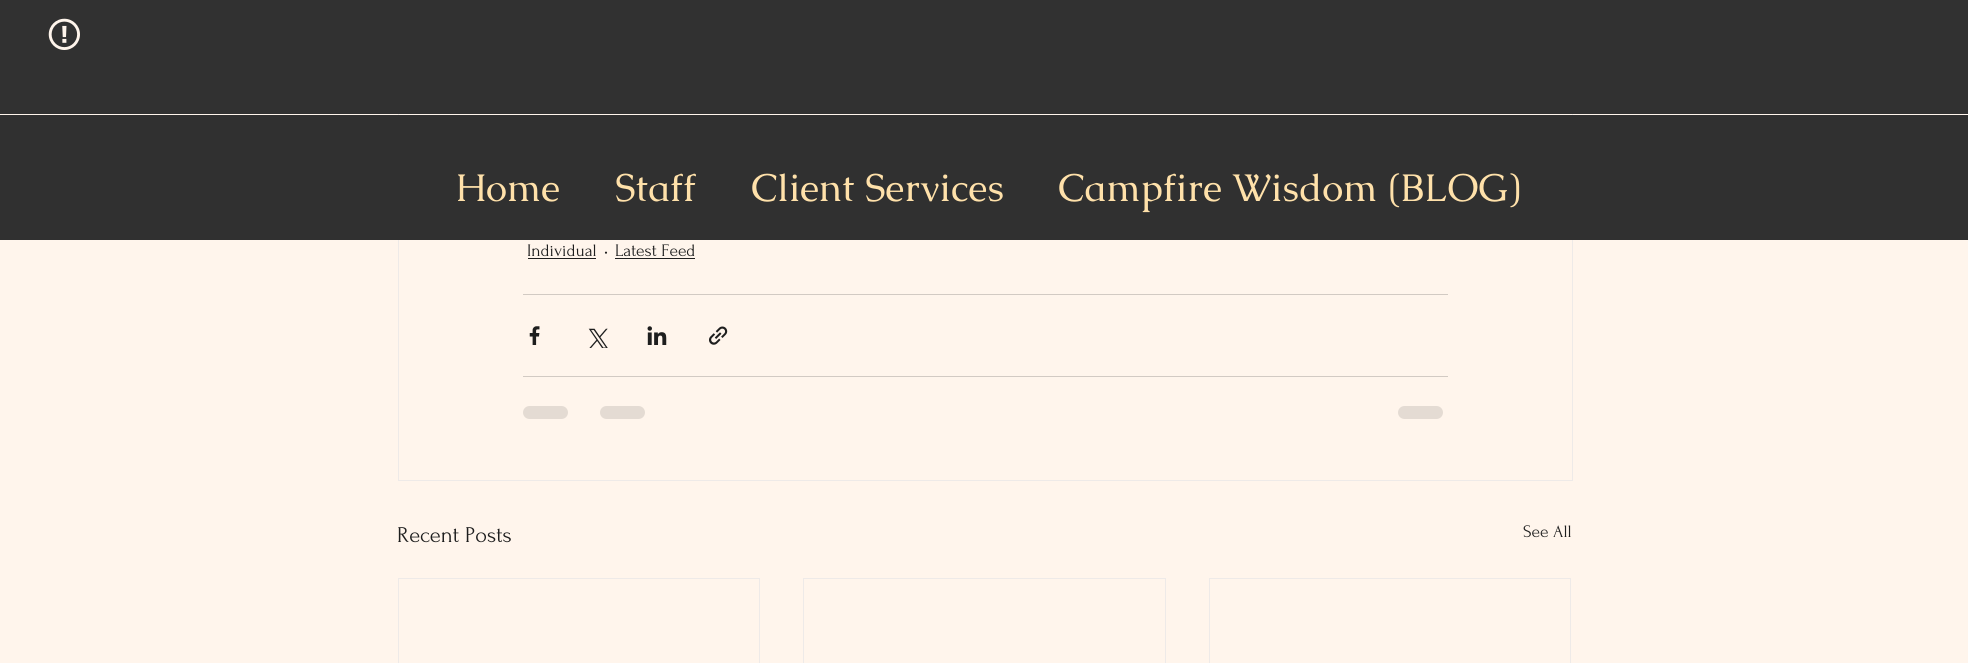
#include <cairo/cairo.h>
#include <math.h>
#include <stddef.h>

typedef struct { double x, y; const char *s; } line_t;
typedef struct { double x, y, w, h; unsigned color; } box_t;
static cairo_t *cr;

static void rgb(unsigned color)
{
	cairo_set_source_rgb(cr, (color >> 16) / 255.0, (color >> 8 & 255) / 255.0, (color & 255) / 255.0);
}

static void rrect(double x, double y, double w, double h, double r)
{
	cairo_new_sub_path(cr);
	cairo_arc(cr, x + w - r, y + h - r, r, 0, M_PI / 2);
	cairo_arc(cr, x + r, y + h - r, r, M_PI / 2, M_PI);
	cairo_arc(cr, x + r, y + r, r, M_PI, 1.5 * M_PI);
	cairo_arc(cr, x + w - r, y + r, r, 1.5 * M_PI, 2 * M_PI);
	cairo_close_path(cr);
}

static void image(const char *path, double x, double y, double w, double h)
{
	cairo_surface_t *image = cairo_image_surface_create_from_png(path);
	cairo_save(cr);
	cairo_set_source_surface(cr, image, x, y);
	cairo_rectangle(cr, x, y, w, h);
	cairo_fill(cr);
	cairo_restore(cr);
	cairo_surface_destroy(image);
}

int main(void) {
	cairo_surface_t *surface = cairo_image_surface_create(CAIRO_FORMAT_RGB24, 1968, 663);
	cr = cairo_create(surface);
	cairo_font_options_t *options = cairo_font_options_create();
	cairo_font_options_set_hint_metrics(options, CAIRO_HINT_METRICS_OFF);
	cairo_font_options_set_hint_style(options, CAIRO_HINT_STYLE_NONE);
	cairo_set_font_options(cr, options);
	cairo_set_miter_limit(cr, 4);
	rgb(0xfff5ec);
	cairo_paint(cr);
	cairo_rectangle(cr, 398.5, -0.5, 1174, 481);
	rgb(0xeeeae8);
	cairo_set_line_width(cr, 1);
	cairo_stroke(cr);
	cairo_set_source_rgba(cr, 0.188, 0.188, 0.188, 0.99);
	cairo_rectangle(cr, 0, 0, 1968, 114);
	cairo_fill(cr);
	image("img/1.png", 48, 18, 32, 32);
	{
		static const box_t items[] = {
			{0, 115, 1968, 125, 0x303030},
			{528, 258, 68, 1, 0x1e1e1e},
			{615, 258, 80, 1, 0x1e1e1e},
			{523, 294, 925, 1, 0xd2cac3},
		};
		for (size_t i = 0; i < sizeof items / sizeof *items; i++) {
			rgb(items[i].color);
			cairo_rectangle(cr, items[i].x, items[i].y, items[i].w, items[i].h);
			cairo_fill(cr);
		}
	}
	image("img/2.png", 529, 326, 11, 19);
	image("img/3.png", 588, 328, 20, 20);
	image("img/4.png", 647, 326, 20, 19);
	image("img/5.png", 709, 326, 19, 19);
	cairo_rectangle(cr, 523, 376, 925, 1);
	cairo_fill(cr);
	rgb(0xe4dbd3);
	rrect(523, 406, 45, 13, 6.5);
	cairo_fill(cr);
	rrect(600, 406, 45, 13, 6.5);
	cairo_fill(cr);
	rrect(1398, 406, 45, 13, 6.5);
	cairo_fill(cr);
	cairo_rectangle(cr, 398.5, 578.5, 361, 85);
	rgb(0xeeeae8);
	cairo_stroke(cr);
	cairo_rectangle(cr, 803.5, 578.5, 362, 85);
	cairo_stroke(cr);
	cairo_rectangle(cr, 1209.5, 578.5, 361, 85);
	cairo_stroke(cr);
	cairo_select_font_face(cr, "Caudex", CAIRO_FONT_SLANT_NORMAL, CAIRO_FONT_WEIGHT_NORMAL);
	cairo_set_font_size(cr, 38.75);
	rgb(0xffe1aa);
	{
		static const line_t items[] = {
			{455, 201, "Home"},
			{615, 201, "Staff"},
			{751, 201, "Client Services"},
			{1058, 201, "Campfire Wisdom (BLOG)"},
		};
		for (size_t i = 0; i < sizeof items / sizeof *items; i++) {
			cairo_move_to(cr, items[i].x, items[i].y);
			cairo_show_text(cr, items[i].s);
		}
	}
	cairo_select_font_face(cr, "Forum", CAIRO_FONT_SLANT_NORMAL, CAIRO_FONT_WEIGHT_NORMAL);
	cairo_set_font_size(cr, 17.5);
	rgb(0x1e1e1e);
	cairo_move_to(cr, 527, 256);
	cairo_show_text(cr, "Individual");
	cairo_set_font_size(cr, 22.5);
	cairo_move_to(cr, 604, 257);
	cairo_show_text(cr, "·");
	cairo_set_font_size(cr, 17.5);
	cairo_move_to(cr, 615, 256);
	cairo_show_text(cr, "Latest Feed");
	cairo_set_font_size(cr, 22.5);
	cairo_move_to(cr, 397, 542);
	cairo_show_text(cr, "Recent Posts");
	cairo_set_font_size(cr, 17.5);
	cairo_move_to(cr, 1523, 537);
	cairo_show_text(cr, "See All");
	cairo_surface_write_to_png(surface, "page.png");
	cairo_font_options_destroy(options);
	cairo_destroy(cr);
	cairo_surface_destroy(surface);
	return 0;
}
